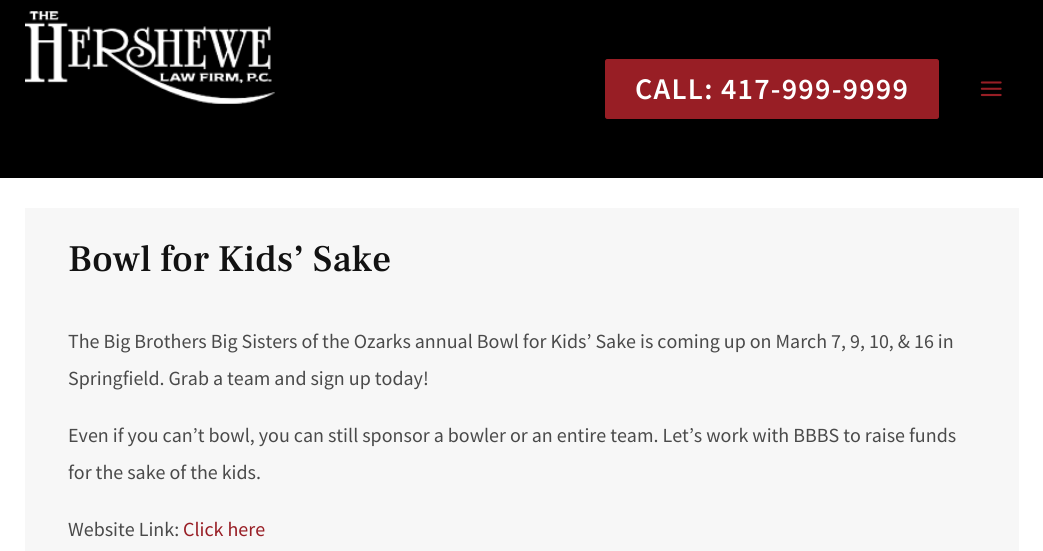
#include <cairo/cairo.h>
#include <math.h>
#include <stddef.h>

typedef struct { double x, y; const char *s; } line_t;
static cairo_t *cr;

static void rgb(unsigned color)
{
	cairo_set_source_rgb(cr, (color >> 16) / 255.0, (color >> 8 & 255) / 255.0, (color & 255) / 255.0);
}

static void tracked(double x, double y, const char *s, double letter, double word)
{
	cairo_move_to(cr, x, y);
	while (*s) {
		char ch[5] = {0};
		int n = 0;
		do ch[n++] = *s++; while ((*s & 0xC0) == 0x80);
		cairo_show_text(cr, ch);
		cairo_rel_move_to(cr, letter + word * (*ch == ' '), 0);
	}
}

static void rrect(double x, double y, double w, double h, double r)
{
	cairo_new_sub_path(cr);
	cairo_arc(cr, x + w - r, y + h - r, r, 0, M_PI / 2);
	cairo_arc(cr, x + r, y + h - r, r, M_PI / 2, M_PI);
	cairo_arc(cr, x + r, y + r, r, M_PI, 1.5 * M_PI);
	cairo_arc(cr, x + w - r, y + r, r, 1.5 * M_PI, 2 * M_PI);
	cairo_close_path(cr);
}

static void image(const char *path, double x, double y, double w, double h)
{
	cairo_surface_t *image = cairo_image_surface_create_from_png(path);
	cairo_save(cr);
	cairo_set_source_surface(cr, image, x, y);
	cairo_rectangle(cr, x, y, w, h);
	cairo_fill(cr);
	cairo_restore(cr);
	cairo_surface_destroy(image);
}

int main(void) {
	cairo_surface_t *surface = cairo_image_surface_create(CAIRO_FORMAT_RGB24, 1043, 551);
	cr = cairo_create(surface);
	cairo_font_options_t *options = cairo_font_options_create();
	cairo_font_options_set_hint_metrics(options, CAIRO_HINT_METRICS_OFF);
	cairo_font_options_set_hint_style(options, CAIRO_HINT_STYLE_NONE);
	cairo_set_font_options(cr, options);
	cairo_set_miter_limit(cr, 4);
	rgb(0xffffff);
	cairo_paint(cr);
	rgb(0x000000);
	cairo_rectangle(cr, 0, 0, 1043, 178);
	cairo_fill(cr);
	image("img/1.png", 25, 11, 250, 93);
	rgb(0x981e25);
	rrect(605.5, 59.5, 333, 59, 2);
	cairo_fill_preserve(cr);
	cairo_set_line_width(cr, 1);
	cairo_stroke(cr);
	image("img/2.png", 980, 81, 22, 16);
	rgb(0xf7f7f7);
	cairo_rectangle(cr, 25, 208, 994, 343);
	cairo_fill(cr);
	cairo_select_font_face(cr, "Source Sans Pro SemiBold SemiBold", CAIRO_FONT_SLANT_NORMAL, CAIRO_FONT_WEIGHT_NORMAL);
	cairo_set_font_size(cr, 30);
	rgb(0xffffff);
	tracked(635, 99, "CALL: 417-999-9999", 1.25, 0);
	cairo_select_font_face(cr, "Frank Ruhl Libre Medium", CAIRO_FONT_SLANT_NORMAL, CAIRO_FONT_WEIGHT_NORMAL);
	cairo_set_font_size(cr, 37.5);
	rgb(0x121212);
	cairo_move_to(cr, 68, 271);
	cairo_show_text(cr, "Bowl for Kids’ Sake");
	cairo_select_font_face(cr, "Source Sans Pro", CAIRO_FONT_SLANT_NORMAL, CAIRO_FONT_WEIGHT_NORMAL);
	cairo_set_font_size(cr, 20);
	rgb(0x4a4a4a);
	{
		static const line_t items[] = {
			{68, 348, "The Big Brothers Big Sisters of the Ozarks annual Bowl for Kids’ Sake is coming up on March 7, 9, 10, & 16 in"},
			{68, 385, "Springfield. Grab a team and sign up today!"},
			{68, 442, "Even if you can’t bowl, you can still sponsor a bowler or an entire team. Let’s work with BBBS to raise funds"},
			{68, 479, "for the sake of the kids."},
			{68, 536, "Website Link:"},
		};
		for (size_t i = 0; i < sizeof items / sizeof *items; i++) {
			cairo_move_to(cr, items[i].x, items[i].y);
			cairo_show_text(cr, items[i].s);
		}
	}
	rgb(0x981e25);
	cairo_move_to(cr, 183, 536);
	cairo_show_text(cr, "Click here");
	cairo_surface_write_to_png(surface, "page.png");
	cairo_font_options_destroy(options);
	cairo_destroy(cr);
	cairo_surface_destroy(surface);
	return 0;
}
